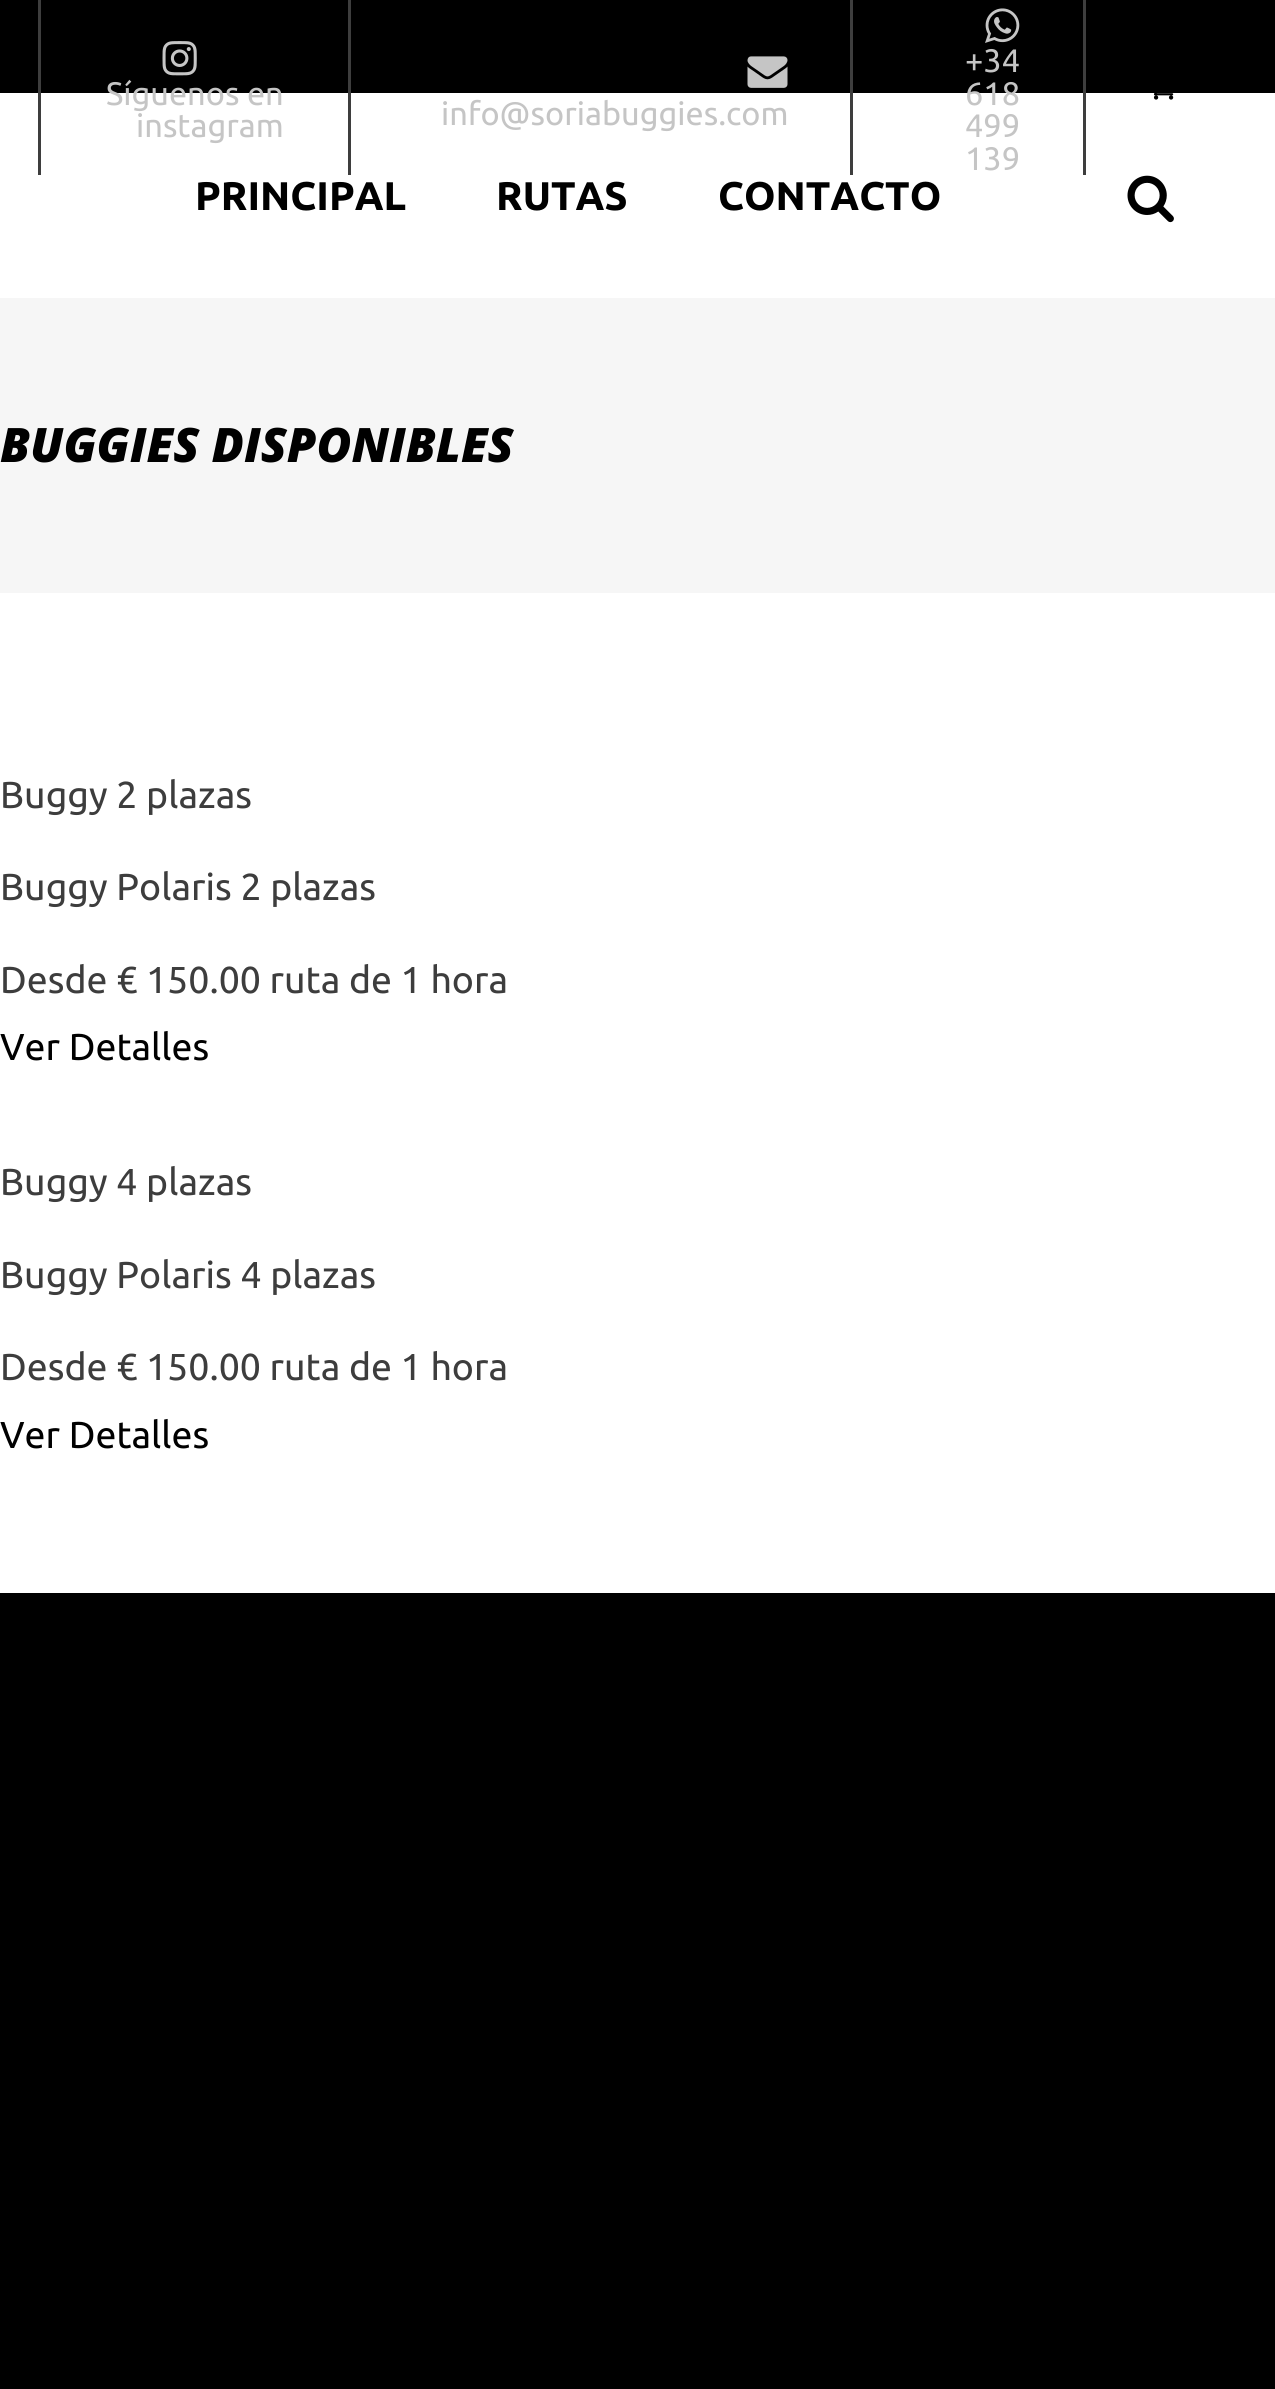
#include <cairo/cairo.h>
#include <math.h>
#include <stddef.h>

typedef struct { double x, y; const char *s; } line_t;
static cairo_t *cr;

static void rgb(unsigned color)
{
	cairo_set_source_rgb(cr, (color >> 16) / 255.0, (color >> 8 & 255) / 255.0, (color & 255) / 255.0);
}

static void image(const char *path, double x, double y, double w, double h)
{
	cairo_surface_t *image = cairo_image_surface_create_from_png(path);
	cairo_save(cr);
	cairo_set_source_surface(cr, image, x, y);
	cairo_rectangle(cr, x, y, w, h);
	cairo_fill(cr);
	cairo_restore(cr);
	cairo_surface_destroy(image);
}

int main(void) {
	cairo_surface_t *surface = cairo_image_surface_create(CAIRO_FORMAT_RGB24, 1275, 2389);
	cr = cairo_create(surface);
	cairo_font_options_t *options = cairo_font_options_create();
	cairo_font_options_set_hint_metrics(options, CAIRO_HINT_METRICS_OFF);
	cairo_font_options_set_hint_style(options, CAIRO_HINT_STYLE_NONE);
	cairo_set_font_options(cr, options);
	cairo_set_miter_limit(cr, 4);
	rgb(0xffffff);
	cairo_paint(cr);
	rgb(0x000000);
	cairo_rectangle(cr, 0, 0, 1275, 93);
	cairo_fill(cr);
	rgb(0x3e3e3e);
	cairo_rectangle(cr, 38, 0, 3, 175);
	cairo_fill(cr);
	image("img/1.png", 162, 41, 35, 35);
	cairo_rectangle(cr, 348, 0, 3, 175);
	cairo_fill(cr);
	image("img/2.png", 747, 56, 41, 32);
	cairo_rectangle(cr, 850, 0, 3, 175);
	cairo_fill(cr);
	image("img/3.png", 985, 8, 35, 35);
	cairo_rectangle(cr, 1083, 0, 3, 175);
	cairo_fill(cr);
	image("img/4.png", 1153, 93, 21, 7);
	image("img/5.png", 1127, 175, 47, 48);
	rgb(0xf6f6f6);
	cairo_rectangle(cr, 0, 298, 1275, 295);
	cairo_fill(cr);
	rgb(0x000000);
	cairo_rectangle(cr, 0, 1593, 1275, 796);
	cairo_fill(cr);
	cairo_select_font_face(cr, "Ubuntu", CAIRO_FONT_SLANT_NORMAL, CAIRO_FONT_WEIGHT_NORMAL);
	cairo_set_font_size(cr, 32.5);
	rgb(0xc5c5c5);
	{
		static const line_t items[] = {
			{106, 105, "Síguenos en"},
			{136, 137, "instagram"},
			{441, 125, "info@soriabuggies.com"},
			{965, 72, "+34"},
			{965, 105, "618"},
			{965, 137, "499"},
			{965, 170, "139"},
		};
		for (size_t i = 0; i < sizeof items / sizeof *items; i++) {
			cairo_move_to(cr, items[i].x, items[i].y);
			cairo_show_text(cr, items[i].s);
		}
	}
	cairo_select_font_face(cr, "Ubuntu", CAIRO_FONT_SLANT_NORMAL, CAIRO_FONT_WEIGHT_BOLD);
	cairo_set_font_size(cr, 40);
	rgb(0x000000);
	{
		static const line_t items[] = {
			{195, 210, "PRINCIPAL"},
			{496, 210, "RUTAS"},
			{718, 210, "CONTACTO"},
		};
		for (size_t i = 0; i < sizeof items / sizeof *items; i++) {
			cairo_move_to(cr, items[i].x, items[i].y);
			cairo_show_text(cr, items[i].s);
		}
	}
	cairo_select_font_face(cr, "Open Sans ExtraBold", CAIRO_FONT_SLANT_ITALIC, CAIRO_FONT_WEIGHT_NORMAL);
	cairo_set_font_size(cr, 47.5);
	cairo_move_to(cr, 0, 462);
	cairo_show_text(cr, "BUGGIES DISPONIBLES");
	cairo_select_font_face(cr, "Ubuntu", CAIRO_FONT_SLANT_NORMAL, CAIRO_FONT_WEIGHT_NORMAL);
	cairo_set_font_size(cr, 37.5);
	rgb(0x3d3d3d);
	{
		static const line_t items[] = {
			{0, 808, "Buggy 2 plazas"},
			{0, 900, "Buggy Polaris 2 plazas"},
			{0, 993, "Desde € 150.00 ruta de 1 hora"},
		};
		for (size_t i = 0; i < sizeof items / sizeof *items; i++) {
			cairo_move_to(cr, items[i].x, items[i].y);
			cairo_show_text(cr, items[i].s);
		}
	}
	rgb(0x000000);
	cairo_move_to(cr, 0, 1060);
	cairo_show_text(cr, "Ver Detalles");
	rgb(0x3d3d3d);
	{
		static const line_t items[] = {
			{0, 1195, "Buggy 4 plazas"},
			{0, 1288, "Buggy Polaris 4 plazas"},
			{0, 1380, "Desde € 150.00 ruta de 1 hora"},
		};
		for (size_t i = 0; i < sizeof items / sizeof *items; i++) {
			cairo_move_to(cr, items[i].x, items[i].y);
			cairo_show_text(cr, items[i].s);
		}
	}
	rgb(0x000000);
	cairo_move_to(cr, 0, 1448);
	cairo_show_text(cr, "Ver Detalles");
	cairo_surface_write_to_png(surface, "page.png");
	cairo_font_options_destroy(options);
	cairo_destroy(cr);
	cairo_surface_destroy(surface);
	return 0;
}
